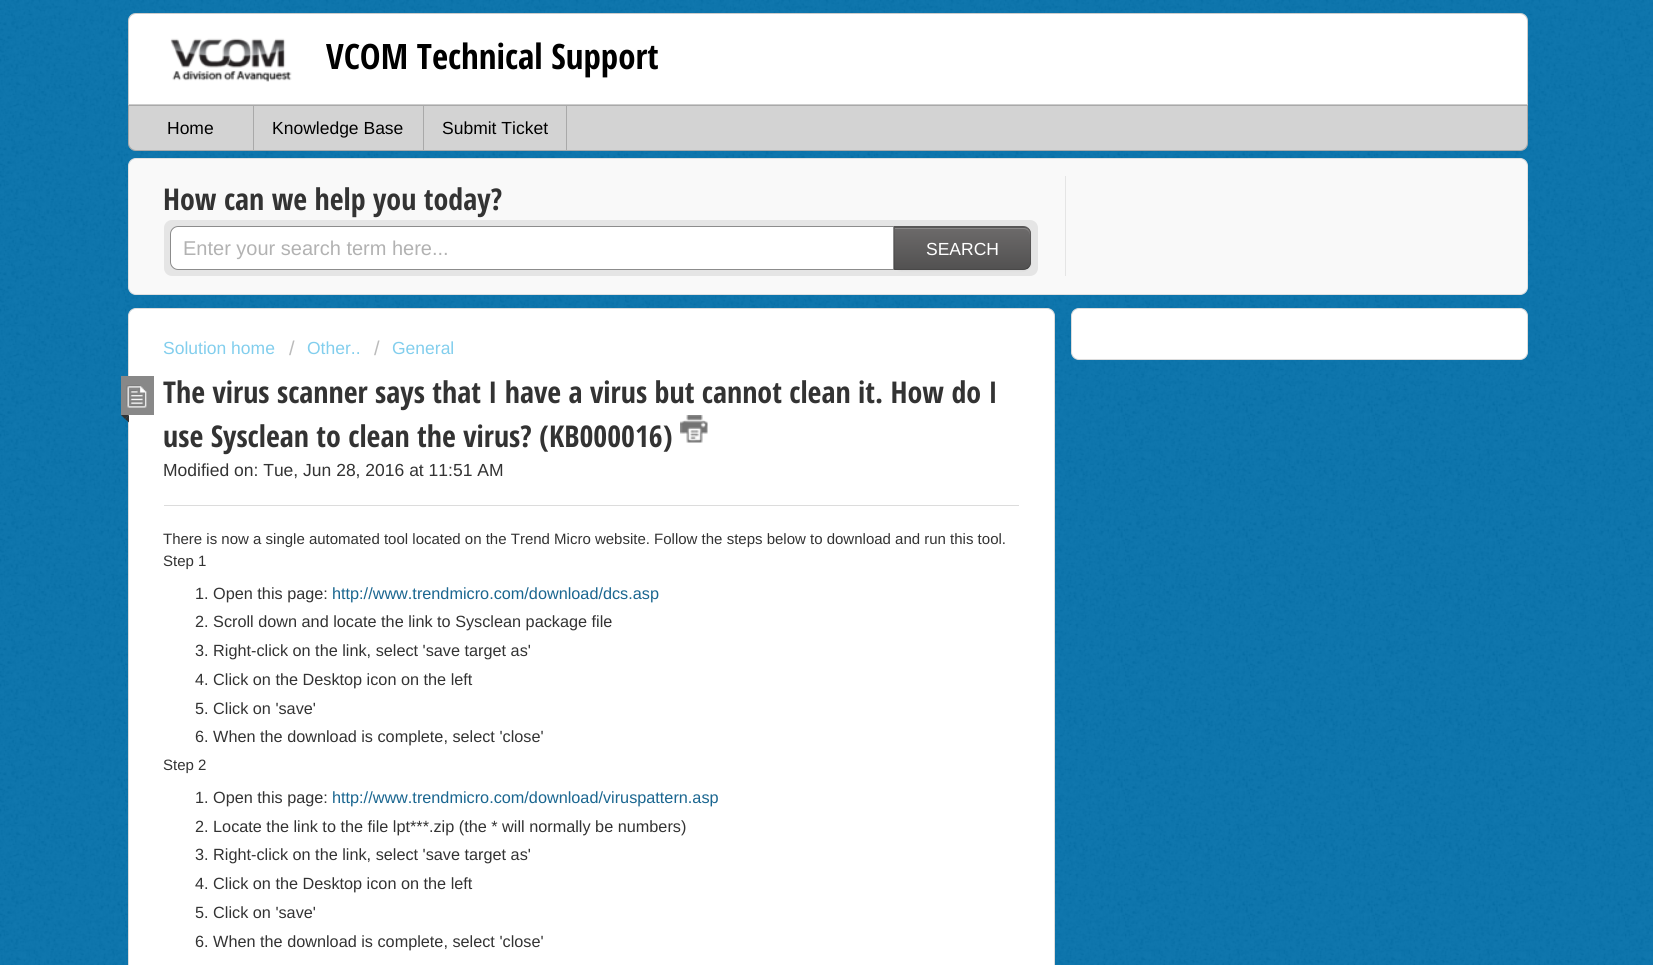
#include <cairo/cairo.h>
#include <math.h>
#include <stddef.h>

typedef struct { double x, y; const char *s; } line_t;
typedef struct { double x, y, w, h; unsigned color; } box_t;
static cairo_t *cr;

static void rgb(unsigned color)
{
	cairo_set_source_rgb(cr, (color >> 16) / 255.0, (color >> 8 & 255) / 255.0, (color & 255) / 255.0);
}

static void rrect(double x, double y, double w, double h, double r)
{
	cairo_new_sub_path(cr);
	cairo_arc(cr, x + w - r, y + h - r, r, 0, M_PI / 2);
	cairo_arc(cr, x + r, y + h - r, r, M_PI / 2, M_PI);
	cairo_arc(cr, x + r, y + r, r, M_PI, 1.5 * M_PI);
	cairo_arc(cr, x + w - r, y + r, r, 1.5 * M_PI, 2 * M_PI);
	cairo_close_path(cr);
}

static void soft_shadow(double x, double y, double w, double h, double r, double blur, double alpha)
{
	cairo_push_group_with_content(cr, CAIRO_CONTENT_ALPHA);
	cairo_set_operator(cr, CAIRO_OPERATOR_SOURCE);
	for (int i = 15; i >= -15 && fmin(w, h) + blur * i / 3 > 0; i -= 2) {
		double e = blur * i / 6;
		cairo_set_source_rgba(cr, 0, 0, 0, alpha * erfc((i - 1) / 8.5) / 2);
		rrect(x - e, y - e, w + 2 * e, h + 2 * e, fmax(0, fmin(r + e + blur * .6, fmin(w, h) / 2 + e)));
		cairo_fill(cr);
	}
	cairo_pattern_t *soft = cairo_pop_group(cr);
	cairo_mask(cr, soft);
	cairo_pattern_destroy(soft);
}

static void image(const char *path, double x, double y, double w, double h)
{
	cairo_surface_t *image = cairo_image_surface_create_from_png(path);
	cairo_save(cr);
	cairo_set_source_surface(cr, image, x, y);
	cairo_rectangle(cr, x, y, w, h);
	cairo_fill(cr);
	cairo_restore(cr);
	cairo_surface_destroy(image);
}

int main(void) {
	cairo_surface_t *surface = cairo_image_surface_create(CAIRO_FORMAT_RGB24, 1653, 965);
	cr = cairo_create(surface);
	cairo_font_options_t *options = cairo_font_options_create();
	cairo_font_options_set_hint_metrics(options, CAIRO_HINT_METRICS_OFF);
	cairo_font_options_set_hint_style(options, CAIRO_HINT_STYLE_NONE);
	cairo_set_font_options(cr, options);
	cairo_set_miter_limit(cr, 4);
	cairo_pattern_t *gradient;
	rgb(0x006ea9);
	cairo_paint(cr);
	image("img/1.png", 0, 0, 1653, 965);
	rgb(0xffffff);
	cairo_new_path(cr);
	cairo_move_to(cr, 136, 13);
	cairo_line_to(cr, 1520, 13);
	cairo_curve_to(cr, 1524.5, 13, 1528, 16.5, 1528, 21);
	cairo_line_to(cr, 1528, 105);
	cairo_line_to(cr, 128, 105);
	cairo_line_to(cr, 128, 21);
	cairo_curve_to(cr, 128, 16.5, 131.5, 13, 136, 13);
	cairo_close_path(cr);
	cairo_fill(cr);
	cairo_new_path(cr);
	cairo_move_to(cr, 135, 15);
	cairo_line_to(cr, 1520, 15);
	cairo_curve_to(cr, 1523, 15, 1526, 18, 1526, 21);
	cairo_curve_to(cr, 1526, 17, 1524, 14, 1520, 14);
	cairo_line_to(cr, 135, 14);
	cairo_curve_to(cr, 131, 14, 129, 17, 129, 21);
	cairo_curve_to(cr, 129, 18, 132, 15, 135, 15);
	cairo_close_path(cr);
	cairo_fill(cr);
	cairo_new_path(cr);
	cairo_move_to(cr, 136, 13.5);
	cairo_line_to(cr, 1520, 13.5);
	cairo_curve_to(cr, 1524, 13.5, 1527.5, 17, 1527.5, 21);
	cairo_line_to(cr, 1527.5, 104.5);
	cairo_line_to(cr, 128.5, 104.5);
	cairo_line_to(cr, 128.5, 21);
	cairo_curve_to(cr, 128.5, 17, 132, 13.5, 136, 13.5);
	cairo_close_path(cr);
	cairo_set_source_rgba(cr, 0, 0, 0, 0.2);
	cairo_set_line_width(cr, 1);
	cairo_stroke(cr);
	image("img/2.png", 170, 38, 122, 44);
	rgb(0xd3d3d3);
	cairo_new_path(cr);
	cairo_move_to(cr, 128, 105);
	cairo_line_to(cr, 1528, 105);
	cairo_line_to(cr, 1528, 143);
	cairo_curve_to(cr, 1528, 147.5, 1524.5, 151, 1520, 151);
	cairo_line_to(cr, 136, 151);
	cairo_curve_to(cr, 131.5, 151, 128, 147.5, 128, 143);
	cairo_close_path(cr);
	cairo_fill(cr);
	cairo_new_path(cr);
	cairo_move_to(cr, 128.5, 105.5);
	cairo_line_to(cr, 1527.5, 105.5);
	cairo_line_to(cr, 1527.5, 143);
	cairo_curve_to(cr, 1527.5, 147, 1524, 150.5, 1520, 150.5);
	cairo_line_to(cr, 136, 150.5);
	cairo_curve_to(cr, 132, 150.5, 128.5, 147, 128.5, 143);
	cairo_close_path(cr);
	cairo_set_source_rgba(cr, 0, 0, 0, 0.2);
	cairo_stroke(cr);
	{
		static const box_t items[] = {
			{253, 106, 1, 44, 0xa9a9a9},
			{423, 106, 1, 44, 0xa9a9a9},
			{566, 106, 1, 44, 0xa9a9a9},
		};
		for (size_t i = 0; i < sizeof items / sizeof *items; i++) {
			rgb(items[i].color);
			cairo_rectangle(cr, items[i].x, items[i].y, items[i].w, items[i].h);
			cairo_fill(cr);
		}
	}
	rgb(0xf9f9f9);
	rrect(128.5, 158.5, 1399, 136, 7.5);
	cairo_fill_preserve(cr);
	rgb(0xe0e0e0);
	cairo_stroke(cr);
	rgb(0xe5e5e5);
	cairo_rectangle(cr, 1065, 176, 1, 100);
	cairo_fill(cr);
	rrect(164, 220, 874, 56, 8);
	cairo_fill(cr);
	rgb(0xffffff);
	cairo_new_path(cr);
	cairo_move_to(cr, 178, 226.5);
	cairo_line_to(cr, 893.5, 226.5);
	cairo_line_to(cr, 893.5, 269.5);
	cairo_line_to(cr, 178, 269.5);
	cairo_curve_to(cr, 174, 269.5, 170.5, 266, 170.5, 262);
	cairo_line_to(cr, 170.5, 234);
	cairo_curve_to(cr, 170.5, 230, 174, 226.5, 178, 226.5);
	cairo_close_path(cr);
	cairo_fill_preserve(cr);
	rgb(0x8c8c8c);
	cairo_stroke(cr);
	rgb(0x000000);
	soft_shadow(894, 228, 137, 43, 8, 1, 0.05);
	rgb(0x626060);
	cairo_new_path(cr);
	cairo_move_to(cr, 894, 226);
	cairo_line_to(cr, 1023, 226);
	cairo_curve_to(cr, 1027.5, 226, 1031, 229.5, 1031, 234);
	cairo_line_to(cr, 1031, 262);
	cairo_curve_to(cr, 1031, 266.5, 1027.5, 270, 1023, 270);
	cairo_line_to(cr, 894, 270);
	cairo_close_path(cr);
	cairo_fill(cr);
	cairo_save(cr);
	cairo_new_path(cr);
	cairo_move_to(cr, 894, 226);
	cairo_line_to(cr, 1023, 226);
	cairo_curve_to(cr, 1027.5, 226, 1031, 229.5, 1031, 234);
	cairo_line_to(cr, 1031, 262);
	cairo_curve_to(cr, 1031, 266.5, 1027.5, 270, 1023, 270);
	cairo_line_to(cr, 894, 270);
	cairo_close_path(cr);
	cairo_clip(cr);
	gradient = cairo_pattern_create_linear(963, 228, 963, 269);
	cairo_pattern_add_color_stop_rgba(gradient, 0, 0.424, 0.416, 0.416, 1);
	cairo_pattern_add_color_stop_rgba(gradient, 1, 0.322, 0.318, 0.318, 1);
	cairo_set_source(cr, gradient);
	cairo_pattern_destroy(gradient);
	cairo_rectangle(cr, 894, 228, 137, 41);
	cairo_fill(cr);
	cairo_restore(cr);
	rgb(0x898888);
	cairo_new_path(cr);
	cairo_move_to(cr, 895, 229);
	cairo_line_to(cr, 1024, 229);
	cairo_curve_to(cr, 1027, 229, 1030, 232, 1030, 235);
	cairo_line_to(cr, 1030, 234);
	cairo_curve_to(cr, 1030, 231, 1027, 228, 1024, 228);
	cairo_line_to(cr, 895, 228);
	cairo_close_path(cr);
	cairo_fill(cr);
	cairo_set_source_rgba(cr, 0, 0, 0, 0.1);
	cairo_new_path(cr);
	cairo_move_to(cr, 894, 226);
	cairo_line_to(cr, 1026, 226);
	cairo_line_to(cr, 1029, 228);
	cairo_line_to(cr, 1028, 229);
	cairo_line_to(cr, 1025, 228);
	cairo_line_to(cr, 896, 228);
	cairo_close_path(cr);
	cairo_fill(cr);
	cairo_new_path(cr);
	cairo_move_to(cr, 1029, 228.5);
	cairo_curve_to(cr, 1030, 230, 1031, 232, 1031, 234);
	cairo_line_to(cr, 1031, 262);
	cairo_curve_to(cr, 1031, 264.5, 1030.5, 266.5, 1029, 268);
	cairo_line_to(cr, 1028, 267);
	cairo_curve_to(cr, 1029.5, 265.5, 1030, 264, 1030, 262);
	cairo_line_to(cr, 1030, 234);
	cairo_curve_to(cr, 1030, 232, 1029, 230.5, 1028, 229.5);
	cairo_close_path(cr);
	cairo_fill(cr);
	cairo_set_source_rgba(cr, 0, 0, 0, 0.25);
	cairo_new_path(cr);
	cairo_move_to(cr, 894, 270);
	cairo_line_to(cr, 1025, 270);
	cairo_line_to(cr, 1029, 268);
	cairo_line_to(cr, 1028, 267);
	cairo_curve_to(cr, 1027, 268, 1026, 269, 1024, 269);
	cairo_line_to(cr, 895, 269);
	cairo_close_path(cr);
	cairo_fill(cr);
	cairo_set_source_rgba(cr, 0, 0, 0, 0.1);
	cairo_new_path(cr);
	cairo_move_to(cr, 895, 228);
	cairo_line_to(cr, 895, 269);
	cairo_line_to(cr, 894, 270);
	cairo_line_to(cr, 894, 226);
	cairo_line_to(cr, 896, 228);
	cairo_close_path(cr);
	cairo_fill(cr);
	rgb(0xffffff);
	rrect(1071.5, 308.5, 456, 51, 7.5);
	cairo_fill_preserve(cr);
	rgb(0xdcdcdc);
	cairo_stroke(cr);
	rgb(0xffffff);
	rrect(128.5, 308.5, 926, 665, 7.5);
	cairo_fill_preserve(cr);
	rgb(0xdcdcdc);
	cairo_stroke(cr);
	rgb(0x888888);
	cairo_rectangle(cr, 121, 376, 33, 39);
	cairo_fill(cr);
	image("img/3.png", 126, 385, 21, 23);
	rgb(0x333333);
	cairo_new_path(cr);
	cairo_move_to(cr, 121, 415);
	cairo_line_to(cr, 129, 415);
	cairo_line_to(cr, 125, 419);
	cairo_close_path(cr);
	cairo_fill(cr);
	cairo_new_path(cr);
	cairo_move_to(cr, 129, 415);
	cairo_line_to(cr, 129, 422.5);
	cairo_line_to(cr, 125, 419);
	cairo_close_path(cr);
	cairo_fill(cr);
	image("img/4.png", 680, 415, 28, 28);
	rgb(0xdcdcdc);
	cairo_rectangle(cr, 164, 505, 855, 1);
	cairo_fill(cr);
	cairo_select_font_face(cr, "Open Sans Condensed", CAIRO_FONT_SLANT_NORMAL, CAIRO_FONT_WEIGHT_BOLD);
	cairo_set_font_size(cr, 35);
	rgb(0x000000);
	cairo_move_to(cr, 326, 69);
	cairo_show_text(cr, "VCOM Technical Support");
	cairo_select_font_face(cr, "Liberation Sans", CAIRO_FONT_SLANT_NORMAL, CAIRO_FONT_WEIGHT_NORMAL);
	cairo_set_font_size(cr, 17.5);
	{
		static const line_t items[] = {
			{167, 134, "Home"},
			{272, 134, "Knowledge Base"},
			{442, 134, "Submit Ticket"},
		};
		for (size_t i = 0; i < sizeof items / sizeof *items; i++) {
			cairo_move_to(cr, items[i].x, items[i].y);
			cairo_show_text(cr, items[i].s);
		}
	}
	cairo_select_font_face(cr, "Open Sans Condensed", CAIRO_FONT_SLANT_NORMAL, CAIRO_FONT_WEIGHT_BOLD);
	cairo_set_font_size(cr, 30);
	rgb(0x333333);
	cairo_move_to(cr, 163, 210);
	cairo_show_text(cr, "How can we help you today?");
	cairo_select_font_face(cr, "Liberation Sans", CAIRO_FONT_SLANT_NORMAL, CAIRO_FONT_WEIGHT_NORMAL);
	cairo_set_font_size(cr, 20);
	rgb(0xb2b2b2);
	cairo_move_to(cr, 183, 255);
	cairo_show_text(cr, "Enter your search term here...");
	cairo_set_font_size(cr, 17.5);
	rgb(0xffffff);
	cairo_move_to(cr, 926, 255);
	cairo_show_text(cr, "SEARCH");
	rgb(0x82ceed);
	cairo_move_to(cr, 163, 354);
	cairo_show_text(cr, "Solution home");
	cairo_set_font_size(cr, 20);
	rgb(0xbbbbbb);
	cairo_move_to(cr, 289, 355);
	cairo_show_text(cr, "/");
	cairo_set_font_size(cr, 17.5);
	rgb(0x82ceed);
	cairo_move_to(cr, 307, 354);
	cairo_show_text(cr, "Other..");
	cairo_set_font_size(cr, 20);
	rgb(0xbbbbbb);
	cairo_move_to(cr, 374, 355);
	cairo_show_text(cr, "/");
	cairo_set_font_size(cr, 17.5);
	rgb(0x82ceed);
	cairo_move_to(cr, 392, 354);
	cairo_show_text(cr, "General");
	cairo_select_font_face(cr, "Open Sans Condensed", CAIRO_FONT_SLANT_NORMAL, CAIRO_FONT_WEIGHT_BOLD);
	cairo_set_font_size(cr, 30);
	rgb(0x333333);
	cairo_move_to(cr, 163, 403);
	cairo_show_text(cr, "The virus scanner says that I have a virus but cannot clean it. How do I");
	cairo_move_to(cr, 163, 447);
	cairo_show_text(cr, "use Sysclean to clean the virus? (KB000016)");
	cairo_select_font_face(cr, "Liberation Sans", CAIRO_FONT_SLANT_NORMAL, CAIRO_FONT_WEIGHT_NORMAL);
	cairo_set_font_size(cr, 17.5);
	cairo_move_to(cr, 163, 476);
	cairo_show_text(cr, "Modified on: Tue, Jun 28, 2016 at 11:51 AM");
	cairo_set_font_size(cr, 15);
	cairo_move_to(cr, 163, 544);
	cairo_show_text(cr, "There is now a single automated tool located on the Trend Micro website. Follow the steps below to download and run this tool.");
	cairo_move_to(cr, 163, 566);
	cairo_show_text(cr, "Step 1");
	cairo_set_font_size(cr, 16.25);
	cairo_move_to(cr, 195, 599);
	cairo_show_text(cr, "1. Open this page:");
	rgb(0x1a6690);
	cairo_move_to(cr, 332, 599);
	cairo_show_text(cr, "http://www.trendmicro.com/download/dcs.asp");
	rgb(0x333333);
	{
		static const line_t items[] = {
			{195, 627, "2. Scroll down and locate the link to Sysclean package file"},
			{195, 656, "3. Right-click on the link, select 'save target as'"},
			{195, 685, "4. Click on the Desktop icon on the left"},
			{195, 714, "5. Click on 'save'"},
			{195, 742, "6. When the download is complete, select 'close'"},
		};
		for (size_t i = 0; i < sizeof items / sizeof *items; i++) {
			cairo_move_to(cr, items[i].x, items[i].y);
			cairo_show_text(cr, items[i].s);
		}
	}
	cairo_set_font_size(cr, 15);
	cairo_move_to(cr, 163, 770);
	cairo_show_text(cr, "Step 2");
	cairo_set_font_size(cr, 16.25);
	cairo_move_to(cr, 195, 803);
	cairo_show_text(cr, "1. Open this page:");
	rgb(0x1a6690);
	cairo_move_to(cr, 332, 803);
	cairo_show_text(cr, "http://www.trendmicro.com/download/viruspattern.asp");
	rgb(0x333333);
	{
		static const line_t items[] = {
			{195, 832, "2. Locate the link to the file lpt***.zip (the * will normally be numbers)"},
			{195, 860, "3. Right-click on the link, select 'save target as'"},
			{195, 889, "4. Click on the Desktop icon on the left"},
			{195, 918, "5. Click on 'save'"},
			{195, 947, "6. When the download is complete, select 'close'"},
		};
		for (size_t i = 0; i < sizeof items / sizeof *items; i++) {
			cairo_move_to(cr, items[i].x, items[i].y);
			cairo_show_text(cr, items[i].s);
		}
	}
	cairo_surface_write_to_png(surface, "page.png");
	cairo_font_options_destroy(options);
	cairo_destroy(cr);
	cairo_surface_destroy(surface);
	return 0;
}
